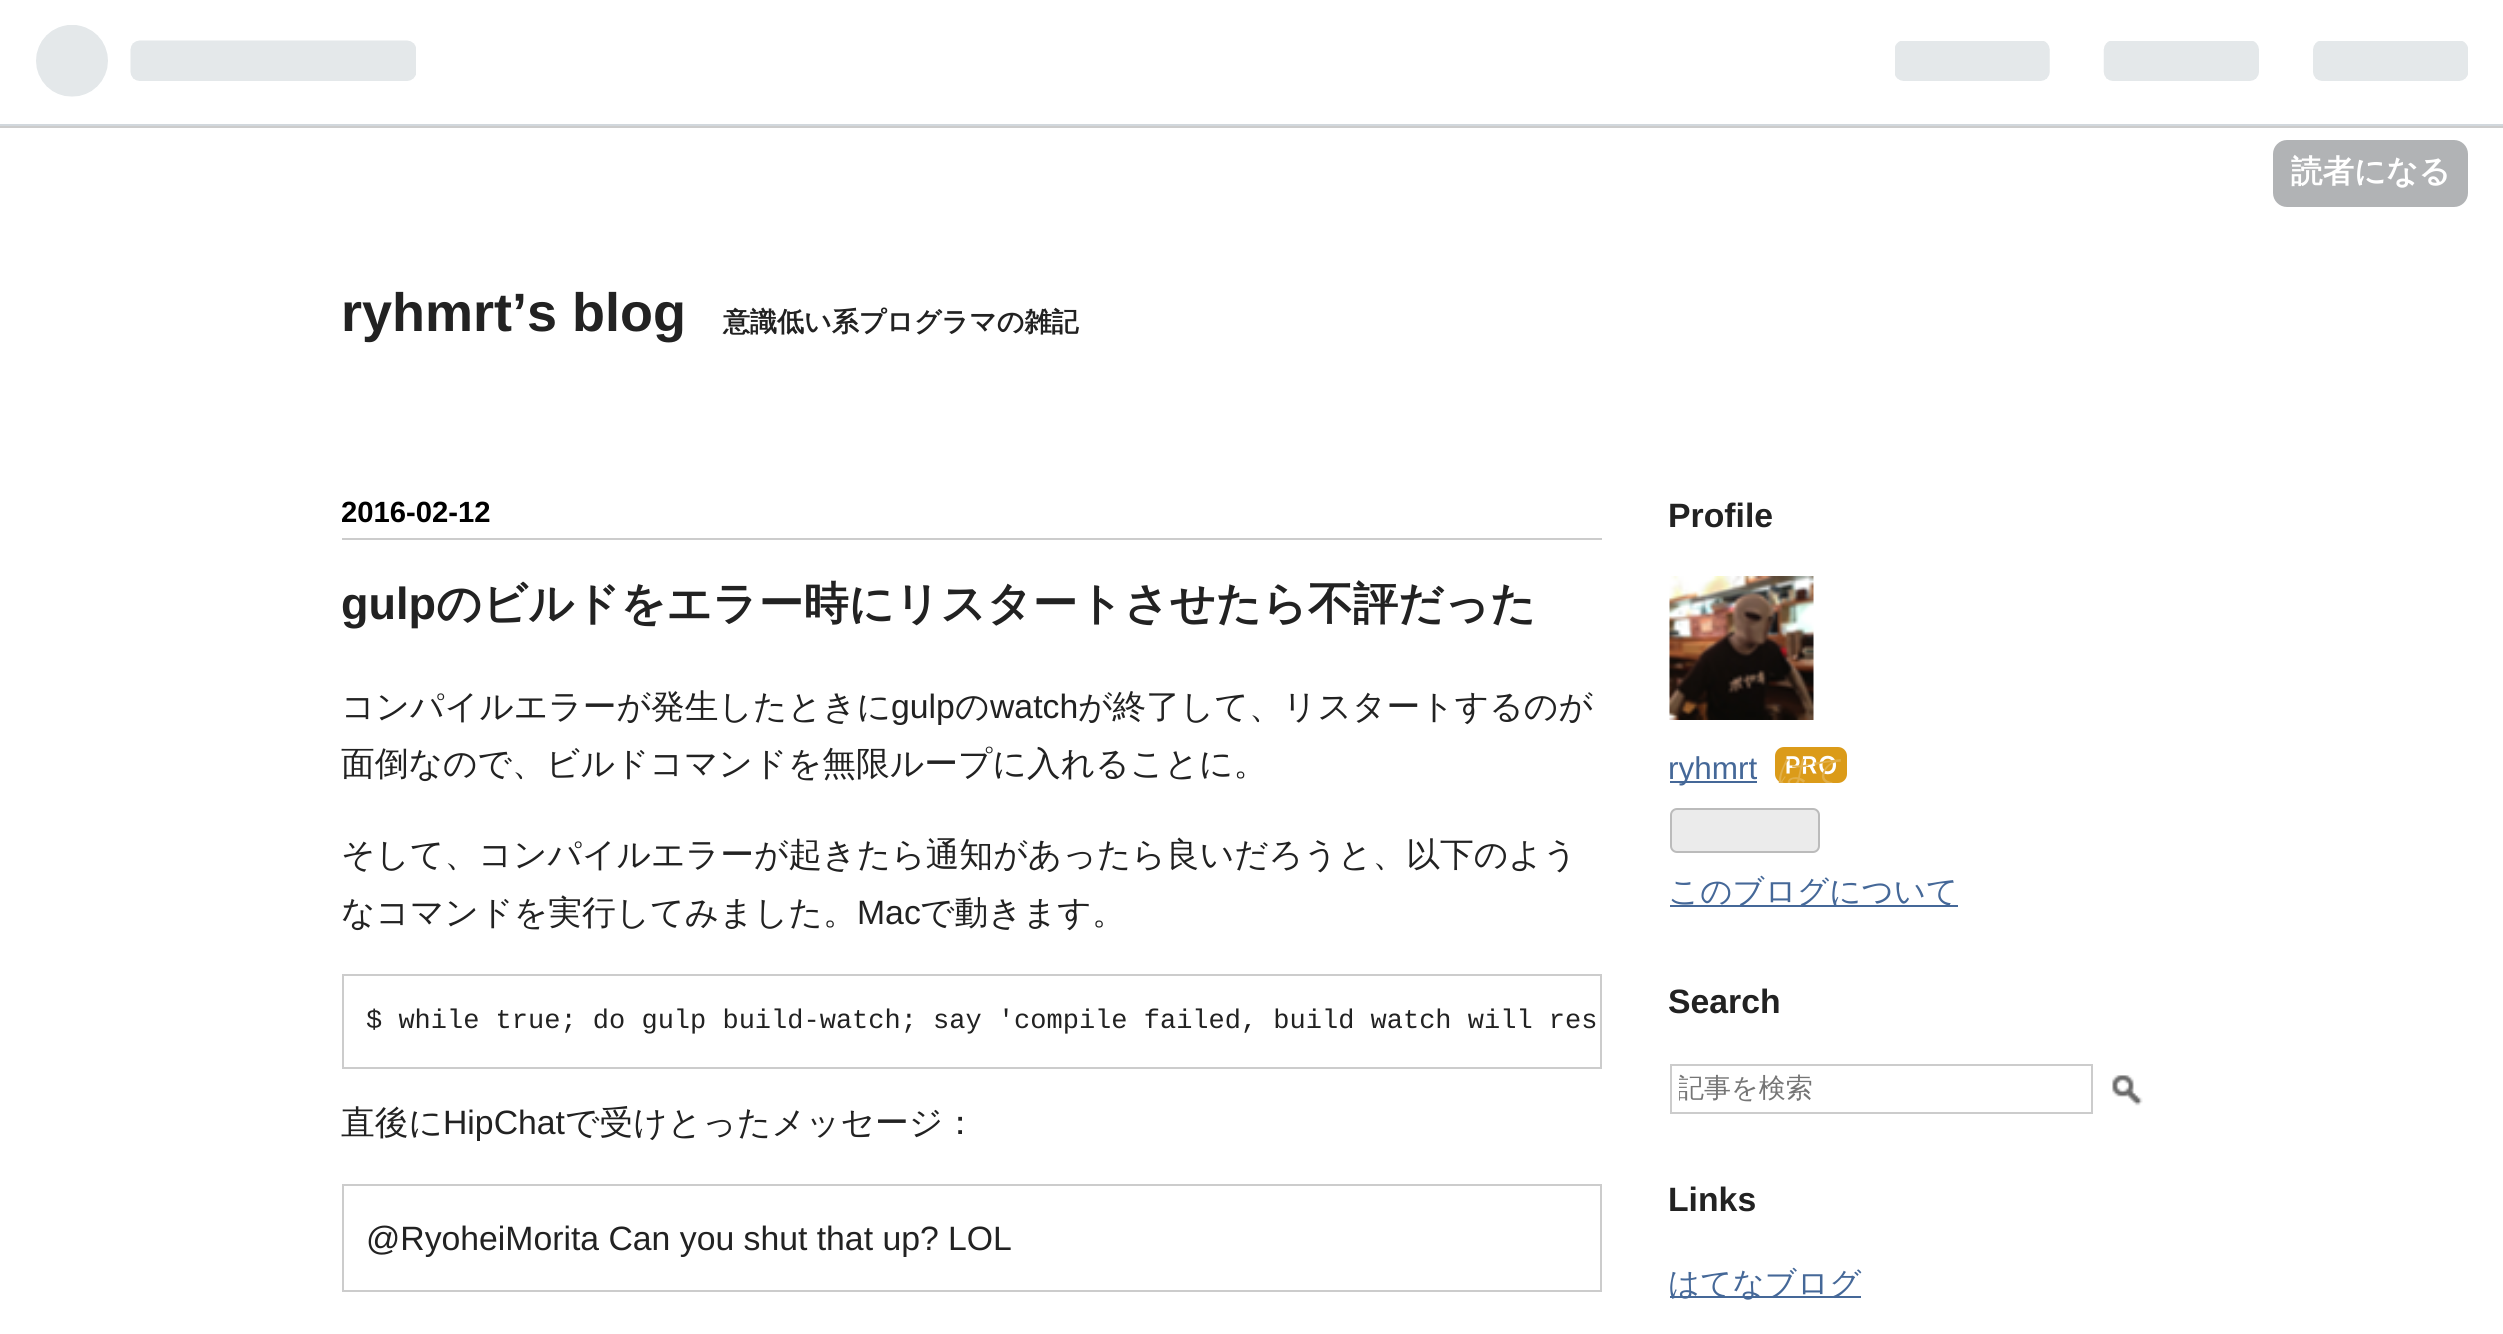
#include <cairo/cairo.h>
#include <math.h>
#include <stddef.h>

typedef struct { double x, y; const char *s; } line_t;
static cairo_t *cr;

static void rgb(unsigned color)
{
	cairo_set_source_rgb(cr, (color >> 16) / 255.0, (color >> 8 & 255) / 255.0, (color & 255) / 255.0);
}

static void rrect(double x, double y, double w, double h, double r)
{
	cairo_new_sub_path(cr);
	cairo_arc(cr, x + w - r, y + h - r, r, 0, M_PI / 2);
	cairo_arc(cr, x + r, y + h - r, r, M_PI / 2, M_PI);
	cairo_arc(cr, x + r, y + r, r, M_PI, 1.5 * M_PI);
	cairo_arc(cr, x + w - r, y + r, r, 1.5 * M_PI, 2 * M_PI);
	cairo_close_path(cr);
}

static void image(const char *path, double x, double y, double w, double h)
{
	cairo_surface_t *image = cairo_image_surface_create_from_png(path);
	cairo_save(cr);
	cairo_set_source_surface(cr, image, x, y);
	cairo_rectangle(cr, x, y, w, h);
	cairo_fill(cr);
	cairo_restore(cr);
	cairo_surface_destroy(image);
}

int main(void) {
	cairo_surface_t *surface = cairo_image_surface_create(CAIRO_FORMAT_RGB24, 2503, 1334);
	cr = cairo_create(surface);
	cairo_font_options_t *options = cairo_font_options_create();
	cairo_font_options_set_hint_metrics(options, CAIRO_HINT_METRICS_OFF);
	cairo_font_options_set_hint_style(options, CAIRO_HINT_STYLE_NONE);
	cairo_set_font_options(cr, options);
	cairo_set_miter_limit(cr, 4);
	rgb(0xffffff);
	cairo_paint(cr);
	rgb(0xd2d8dd);
	cairo_rectangle(cr, 0, 124, 2503, 2);
	cairo_fill(cr);
	rgb(0xcccccc);
	cairo_rectangle(cr, 0, 126, 2503, 2);
	cairo_fill(cr);
	image("img/1.png", 36, 25, 380, 72);
	image("img/2.png", 1895, 41, 573, 40);
	rgb(0xb1b3b5);
	rrect(2273, 140, 195, 67, 14);
	cairo_fill(cr);
	rgb(0xcccccc);
	cairo_rectangle(cr, 342, 538, 1260, 2);
	cairo_fill(cr);
	cairo_rectangle(cr, 343, 975, 1258, 93);
	cairo_stroke(cr);
	cairo_rectangle(cr, 343, 1185, 1258, 106);
	cairo_stroke(cr);
	image("img/3.png", 1669, 576, 145, 144);
	rgb(0x456898);
	cairo_rectangle(cr, 1670, 781, 87, 2);
	cairo_fill(cr);
	image("img/4.png", 1775, 747, 72, 36);
	rgb(0xebebeb);
	rrect(1671, 809, 148, 43, 6);
	cairo_fill_preserve(cr);
	rgb(0xbbbbbb);
	cairo_stroke(cr);
	rgb(0x456898);
	cairo_rectangle(cr, 1670, 905, 288, 2);
	cairo_fill(cr);
	cairo_rectangle(cr, 1671, 1065, 421, 48);
	rgb(0xcccccc);
	cairo_stroke(cr);
	image("img/5.png", 2112, 1075, 31, 31);
	rgb(0x456898);
	cairo_rectangle(cr, 1670, 1296, 191, 2);
	cairo_fill(cr);
	cairo_select_font_face(cr, "WenQuanYi Zen Hei", CAIRO_FONT_SLANT_NORMAL, CAIRO_FONT_WEIGHT_BOLD);
	cairo_set_font_size(cr, 31.5);
	rgb(0xffffff);
	cairo_move_to(cr, 2291, 182);
	cairo_show_text(cr, "読者になる");
	cairo_select_font_face(cr, "Liberation Sans", CAIRO_FONT_SLANT_NORMAL, CAIRO_FONT_WEIGHT_BOLD);
	cairo_set_font_size(cr, 54);
	rgb(0x222222);
	cairo_move_to(cr, 341, 331);
	cairo_show_text(cr, "ryhmrt’s blog");
	cairo_select_font_face(cr, "WenQuanYi Zen Hei", CAIRO_FONT_SLANT_NORMAL, CAIRO_FONT_WEIGHT_BOLD);
	cairo_set_font_size(cr, 27);
	cairo_move_to(cr, 723, 331);
	cairo_show_text(cr, "意識低い系プログラマの雑記");
	cairo_select_font_face(cr, "Liberation Sans", CAIRO_FONT_SLANT_NORMAL, CAIRO_FONT_WEIGHT_BOLD);
	cairo_set_font_size(cr, 29.25);
	rgb(0x000000);
	cairo_move_to(cr, 341, 522);
	cairo_show_text(cr, "2016-02-12");
	cairo_set_font_size(cr, 45);
	rgb(0x222222);
	cairo_move_to(cr, 341, 619);
	cairo_show_text(cr, "gulp");
	cairo_select_font_face(cr, "WenQuanYi Zen Hei", CAIRO_FONT_SLANT_NORMAL, CAIRO_FONT_WEIGHT_BOLD);
	cairo_move_to(cr, 436, 619);
	cairo_show_text(cr, "のビルドをエラー時にリスタートさせたら不評だった");
	cairo_select_font_face(cr, "WenQuanYi Zen Hei Medium", CAIRO_FONT_SLANT_NORMAL, CAIRO_FONT_WEIGHT_NORMAL);
	cairo_set_font_size(cr, 33.75);
	cairo_move_to(cr, 341, 718);
	cairo_show_text(cr, "コンパイルエラーが発生したときに");
	cairo_select_font_face(cr, "Liberation Sans", CAIRO_FONT_SLANT_NORMAL, CAIRO_FONT_WEIGHT_NORMAL);
	cairo_move_to(cr, 891, 718);
	cairo_show_text(cr, "gulp");
	cairo_select_font_face(cr, "WenQuanYi Zen Hei Medium", CAIRO_FONT_SLANT_NORMAL, CAIRO_FONT_WEIGHT_NORMAL);
	cairo_move_to(cr, 955, 718);
	cairo_show_text(cr, "の");
	cairo_select_font_face(cr, "Liberation Sans", CAIRO_FONT_SLANT_NORMAL, CAIRO_FONT_WEIGHT_NORMAL);
	cairo_move_to(cr, 990, 718);
	cairo_show_text(cr, "watch");
	cairo_select_font_face(cr, "WenQuanYi Zen Hei Medium", CAIRO_FONT_SLANT_NORMAL, CAIRO_FONT_WEIGHT_NORMAL);
	{
		static const line_t items[] = {
			{1078, 718, "が終了して、リスタートするのが"},
			{341, 775, "面倒なので、ビルドコマンドを無限ループに入れることに。"},
			{341, 866, "そして、コンパイルエラーが起きたら通知があったら良いだろうと、以下のよう"},
			{341, 924, "なコマンドを実行してみました。"},
		};
		for (size_t i = 0; i < sizeof items / sizeof *items; i++) {
			cairo_move_to(cr, items[i].x, items[i].y);
			cairo_show_text(cr, items[i].s);
		}
	}
	cairo_select_font_face(cr, "Liberation Sans", CAIRO_FONT_SLANT_NORMAL, CAIRO_FONT_WEIGHT_NORMAL);
	cairo_move_to(cr, 857, 924);
	cairo_show_text(cr, "Mac");
	cairo_select_font_face(cr, "WenQuanYi Zen Hei Medium", CAIRO_FONT_SLANT_NORMAL, CAIRO_FONT_WEIGHT_NORMAL);
	cairo_move_to(cr, 920, 924);
	cairo_show_text(cr, "で動きます。");
	cairo_select_font_face(cr, "Liberation Mono", CAIRO_FONT_SLANT_NORMAL, CAIRO_FONT_WEIGHT_NORMAL);
	cairo_set_font_size(cr, 27);
	cairo_move_to(cr, 366, 1028);
	cairo_show_text(cr, "$ while true; do gulp build-watch; say 'compile failed, build watch will res");
	cairo_select_font_face(cr, "WenQuanYi Zen Hei Medium", CAIRO_FONT_SLANT_NORMAL, CAIRO_FONT_WEIGHT_NORMAL);
	cairo_set_font_size(cr, 33.75);
	cairo_move_to(cr, 341, 1134);
	cairo_show_text(cr, "直後に");
	cairo_select_font_face(cr, "Liberation Sans", CAIRO_FONT_SLANT_NORMAL, CAIRO_FONT_WEIGHT_NORMAL);
	cairo_move_to(cr, 443, 1134);
	cairo_show_text(cr, "HipChat");
	cairo_select_font_face(cr, "WenQuanYi Zen Hei Medium", CAIRO_FONT_SLANT_NORMAL, CAIRO_FONT_WEIGHT_NORMAL);
	cairo_move_to(cr, 565, 1134);
	cairo_show_text(cr, "で受けとったメッセージ：");
	cairo_select_font_face(cr, "Liberation Sans", CAIRO_FONT_SLANT_NORMAL, CAIRO_FONT_WEIGHT_NORMAL);
	cairo_move_to(cr, 366, 1250);
	cairo_show_text(cr, "@RyoheiMorita Can you shut that up? LOL");
	cairo_select_font_face(cr, "Liberation Sans", CAIRO_FONT_SLANT_NORMAL, CAIRO_FONT_WEIGHT_BOLD);
	cairo_move_to(cr, 1668, 527);
	cairo_show_text(cr, "Profile");
	cairo_select_font_face(cr, "Liberation Sans", CAIRO_FONT_SLANT_NORMAL, CAIRO_FONT_WEIGHT_NORMAL);
	cairo_set_font_size(cr, 31.5);
	rgb(0x456898);
	cairo_move_to(cr, 1668, 779);
	cairo_show_text(cr, "ryhmrt");
	cairo_save(cr);
	cairo_rectangle(cr, 1775, 747, 72, 36);
	cairo_clip(cr);
	cairo_select_font_face(cr, "WenQuanYi Zen Hei Medium", CAIRO_FONT_SLANT_ITALIC, CAIRO_FONT_WEIGHT_NORMAL);
	rgb(0xe2af48);
	cairo_move_to(cr, 1776, 781);
	cairo_show_text(cr, "はて");
	cairo_restore(cr);
	cairo_select_font_face(cr, "WenQuanYi Zen Hei Medium", CAIRO_FONT_SLANT_NORMAL, CAIRO_FONT_WEIGHT_NORMAL);
	cairo_move_to(cr, 1668, 902);
	cairo_show_text(cr, "このブログについて");
	cairo_select_font_face(cr, "Liberation Sans", CAIRO_FONT_SLANT_NORMAL, CAIRO_FONT_WEIGHT_BOLD);
	cairo_set_font_size(cr, 33.75);
	rgb(0x222222);
	cairo_move_to(cr, 1668, 1013);
	cairo_show_text(cr, "Search");
	cairo_save(cr);
	cairo_rectangle(cr, 1679, 1071, 405, 38);
	cairo_clip(cr);
	cairo_select_font_face(cr, "WenQuanYi Zen Hei Medium", CAIRO_FONT_SLANT_NORMAL, CAIRO_FONT_WEIGHT_NORMAL);
	cairo_set_font_size(cr, 27);
	rgb(0x757575);
	cairo_move_to(cr, 1677, 1097);
	cairo_show_text(cr, "記事を検索");
	cairo_restore(cr);
	cairo_move_to(cr, 1668, 1211);
	cairo_show_text(cr, "Links");
	cairo_select_font_face(cr, "WenQuanYi Zen Hei Medium", CAIRO_FONT_SLANT_NORMAL, CAIRO_FONT_WEIGHT_NORMAL);
	cairo_set_font_size(cr, 31.5);
	rgb(0x456898);
	cairo_move_to(cr, 1668, 1294);
	cairo_show_text(cr, "はてなブログ");
	cairo_surface_write_to_png(surface, "page.png");
	cairo_font_options_destroy(options);
	cairo_destroy(cr);
	cairo_surface_destroy(surface);
	return 0;
}
